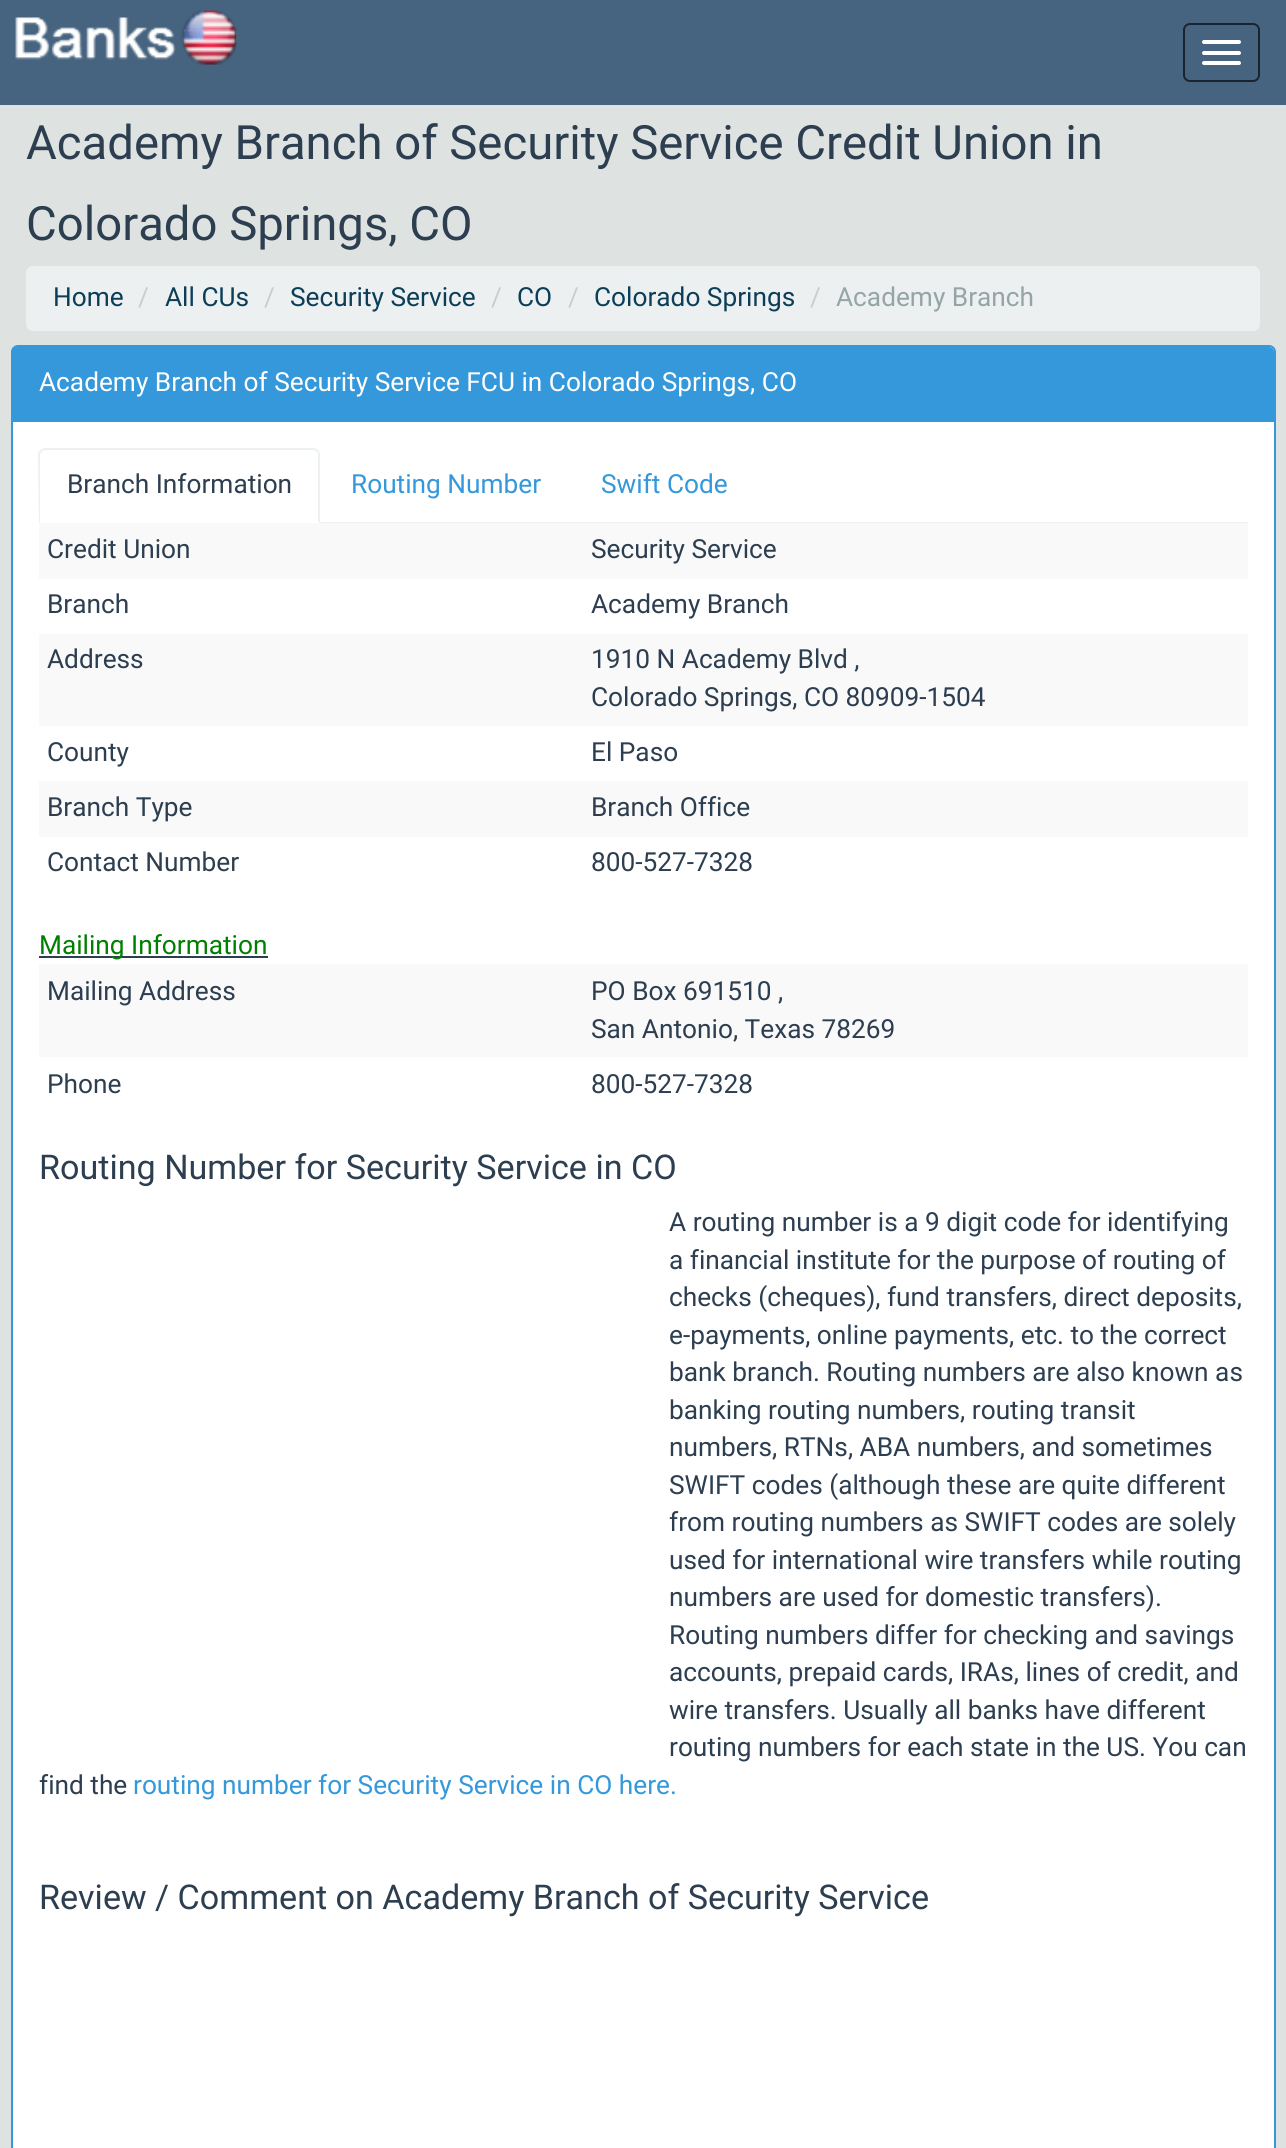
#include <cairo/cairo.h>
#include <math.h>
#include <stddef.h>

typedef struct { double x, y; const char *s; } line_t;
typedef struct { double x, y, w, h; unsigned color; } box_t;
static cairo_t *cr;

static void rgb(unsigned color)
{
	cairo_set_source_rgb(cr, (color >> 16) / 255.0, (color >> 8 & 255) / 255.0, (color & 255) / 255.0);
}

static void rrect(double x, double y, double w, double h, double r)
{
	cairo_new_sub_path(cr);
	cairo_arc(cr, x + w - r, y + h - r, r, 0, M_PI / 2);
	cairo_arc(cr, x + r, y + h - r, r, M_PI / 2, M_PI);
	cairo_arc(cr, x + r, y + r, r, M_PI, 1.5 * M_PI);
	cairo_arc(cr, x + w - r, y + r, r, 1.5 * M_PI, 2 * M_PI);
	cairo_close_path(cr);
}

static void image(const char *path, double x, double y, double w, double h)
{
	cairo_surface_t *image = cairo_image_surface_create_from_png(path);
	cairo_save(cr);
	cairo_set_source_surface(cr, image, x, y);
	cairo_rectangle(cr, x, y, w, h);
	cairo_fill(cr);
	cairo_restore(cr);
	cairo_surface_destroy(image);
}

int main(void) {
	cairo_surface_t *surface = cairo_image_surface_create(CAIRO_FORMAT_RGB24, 1286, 2148);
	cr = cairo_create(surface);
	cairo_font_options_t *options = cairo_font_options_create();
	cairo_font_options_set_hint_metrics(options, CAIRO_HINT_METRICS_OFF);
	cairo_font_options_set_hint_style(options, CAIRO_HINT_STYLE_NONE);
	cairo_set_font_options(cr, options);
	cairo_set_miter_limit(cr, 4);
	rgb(0xdee3e2);
	cairo_paint(cr);
	rgb(0x46637f);
	cairo_rectangle(cr, 0, 0, 1286, 105);
	cairo_fill(cr);
	image("img/1.png", 15, 10, 223, 55);
	rrect(1184, 24, 75, 57, 6);
	rgb(0x1a242f);
	cairo_stroke(cr);
	rgb(0xffffff);
	rrect(1202, 40, 39, 4, 2);
	cairo_fill(cr);
	rrect(1202, 51, 39, 4, 2);
	cairo_fill(cr);
	rrect(1202, 61, 39, 4, 2);
	cairo_fill(cr);
	rgb(0xecf0f1);
	rrect(26, 266, 1234, 65, 7);
	cairo_fill(cr);
	rgb(0xffffff);
	rrect(12, 346, 1263, 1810, 6);
	cairo_fill_preserve(cr);
	rgb(0x3498db);
	cairo_stroke(cr);
	cairo_new_path(cr);
	cairo_move_to(cr, 17, 347);
	cairo_line_to(cr, 1269, 347);
	cairo_curve_to(cr, 1272, 347, 1274, 349, 1274, 352);
	cairo_line_to(cr, 1274, 422);
	cairo_line_to(cr, 12, 422);
	cairo_line_to(cr, 12, 352);
	cairo_curve_to(cr, 12, 349, 14, 347, 17, 347);
	cairo_close_path(cr);
	cairo_fill(cr);
	rgb(0xecf0f1);
	cairo_rectangle(cr, 320, 522, 928, 1);
	cairo_fill(cr);
	cairo_new_path(cr);
	cairo_move_to(cr, 46, 448);
	cairo_curve_to(cr, 44, 448, 42, 449, 40, 450);
	cairo_line_to(cr, 42, 451);
	cairo_line_to(cr, 45, 450);
	cairo_line_to(cr, 314, 450);
	cairo_line_to(cr, 317, 452);
	cairo_line_to(cr, 318, 450);
	cairo_curve_to(cr, 317, 449, 315, 448, 313, 448);
	cairo_close_path(cr);
	cairo_fill(cr);
	cairo_new_path(cr);
	cairo_move_to(cr, 318, 450);
	cairo_curve_to(cr, 319, 451, 320, 453, 320, 455);
	cairo_line_to(cr, 320, 523);
	cairo_line_to(cr, 318, 521);
	cairo_line_to(cr, 318, 455);
	cairo_curve_to(cr, 318, 454, 318, 452, 317, 452);
	cairo_close_path(cr);
	cairo_fill(cr);
	cairo_new_path(cr);
	cairo_move_to(cr, 38, 453);
	cairo_line_to(cr, 40, 450);
	cairo_line_to(cr, 42, 451);
	cairo_line_to(cr, 40, 454);
	cairo_line_to(cr, 40, 522);
	cairo_line_to(cr, 39, 523);
	cairo_close_path(cr);
	cairo_fill(cr);
	{
		static const box_t items[] = {
			{39, 523, 1209, 56, 0xf9f9f9},
			{39, 634, 1209, 92, 0xf9f9f9},
			{39, 781, 1209, 56, 0xf9f9f9},
			{39, 956, 229, 2, 0x2c3e50},
			{39, 964, 1209, 93, 0xf9f9f9},
		};
		for (size_t i = 0; i < sizeof items / sizeof *items; i++) {
			rgb(items[i].color);
			cairo_rectangle(cr, items[i].x, items[i].y, items[i].w, items[i].h);
			cairo_fill(cr);
		}
	}
	cairo_select_font_face(cr, "Roboto", CAIRO_FONT_SLANT_NORMAL, CAIRO_FONT_WEIGHT_NORMAL);
	cairo_set_font_size(cr, 47.25);
	rgb(0x2c3e50);
	cairo_move_to(cr, 26, 159);
	cairo_show_text(cr, "Academy Branch of Security Service Credit Union in");
	cairo_move_to(cr, 26, 240);
	cairo_show_text(cr, "Colorado Springs, CO");
	cairo_set_font_size(cr, 26.25);
	rgb(0x0d3e58);
	cairo_move_to(cr, 53, 306);
	cairo_show_text(cr, "Home");
	rgb(0xcccccc);
	cairo_move_to(cr, 138, 306);
	cairo_show_text(cr, "/");
	rgb(0x0d3e58);
	cairo_move_to(cr, 165, 306);
	cairo_show_text(cr, "All CUs");
	rgb(0xcccccc);
	cairo_move_to(cr, 264, 306);
	cairo_show_text(cr, "/");
	rgb(0x0d3e58);
	cairo_move_to(cr, 290, 306);
	cairo_show_text(cr, "Security Service");
	rgb(0xcccccc);
	cairo_move_to(cr, 491, 306);
	cairo_show_text(cr, "/");
	rgb(0x0d3e58);
	cairo_move_to(cr, 517, 306);
	cairo_show_text(cr, "CO");
	rgb(0xcccccc);
	cairo_move_to(cr, 568, 306);
	cairo_show_text(cr, "/");
	rgb(0x0d3e58);
	cairo_move_to(cr, 594, 306);
	cairo_show_text(cr, "Colorado Springs");
	rgb(0xcccccc);
	cairo_move_to(cr, 810, 306);
	cairo_show_text(cr, "/");
	rgb(0x95a5a6);
	cairo_move_to(cr, 836, 306);
	cairo_show_text(cr, "Academy Branch");
	rgb(0xffffff);
	cairo_move_to(cr, 39, 391);
	cairo_show_text(cr, "Academy Branch of Security Service FCU in Colorado Springs, CO");
	rgb(0x2c3e50);
	cairo_move_to(cr, 67, 493);
	cairo_show_text(cr, "Branch Information");
	rgb(0x3498db);
	cairo_move_to(cr, 351, 493);
	cairo_show_text(cr, "Routing Number");
	cairo_move_to(cr, 601, 493);
	cairo_show_text(cr, "Swift Code");
	rgb(0x2c3e50);
	{
		static const line_t items[] = {
			{47, 558, "Credit Union"},
			{591, 558, "Security Service"},
			{47, 613, "Branch"},
			{591, 613, "Academy Branch"},
			{47, 668, "Address"},
			{591, 668, "1910 N Academy Blvd ,"},
			{591, 706, "Colorado Springs, CO 80909-1504"},
			{47, 761, "County"},
			{591, 761, "El Paso"},
			{47, 816, "Branch Type"},
			{591, 816, "Branch Office"},
			{47, 871, "Contact Number"},
			{591, 871, "800-527-7328"},
		};
		for (size_t i = 0; i < sizeof items / sizeof *items; i++) {
			cairo_move_to(cr, items[i].x, items[i].y);
			cairo_show_text(cr, items[i].s);
		}
	}
	rgb(0x008000);
	cairo_move_to(cr, 39, 954);
	cairo_show_text(cr, "Mailing Information");
	rgb(0x2c3e50);
	{
		static const line_t items[] = {
			{47, 1000, "Mailing Address"},
			{591, 1000, "PO Box 691510 ,"},
			{591, 1038, "San Antonio, Texas 78269"},
			{47, 1093, "Phone"},
			{591, 1093, "800-527-7328"},
		};
		for (size_t i = 0; i < sizeof items / sizeof *items; i++) {
			cairo_move_to(cr, items[i].x, items[i].y);
			cairo_show_text(cr, items[i].s);
		}
	}
	cairo_set_font_size(cr, 34.1);
	cairo_move_to(cr, 39, 1179);
	cairo_show_text(cr, "Routing Number for Security Service in CO");
	cairo_set_font_size(cr, 26.25);
	{
		static const line_t items[] = {
			{669, 1231, "A routing number is a 9 digit code for identifying"},
			{669, 1269, "a financial institute for the purpose of routing of"},
			{669, 1306, "checks (cheques), fund transfers, direct deposits,"},
			{669, 1344, "e-payments, online payments, etc. to the correct"},
			{669, 1381, "bank branch. Routing numbers are also known as"},
			{669, 1419, "banking routing numbers, routing transit"},
			{669, 1456, "numbers, RTNs, ABA numbers, and sometimes"},
			{669, 1494, "SWIFT codes (although these are quite different"},
			{669, 1531, "from routing numbers as SWIFT codes are solely"},
			{669, 1569, "used for international wire transfers while routing"},
			{669, 1606, "numbers are used for domestic transfers)."},
			{669, 1644, "Routing numbers differ for checking and savings"},
			{669, 1681, "accounts, prepaid cards, IRAs, lines of credit, and"},
			{669, 1719, "wire transfers. Usually all banks have different"},
			{669, 1756, "routing numbers for each state in the US. You can"},
			{39, 1794, "find the"},
		};
		for (size_t i = 0; i < sizeof items / sizeof *items; i++) {
			cairo_move_to(cr, items[i].x, items[i].y);
			cairo_show_text(cr, items[i].s);
		}
	}
	rgb(0x3498db);
	cairo_move_to(cr, 133, 1794);
	cairo_show_text(cr, "routing number for Security Service in CO here.");
	cairo_set_font_size(cr, 34.1);
	rgb(0x2c3e50);
	cairo_move_to(cr, 39, 1909);
	cairo_show_text(cr, "Review / Comment on Academy Branch of Security Service");
	cairo_surface_write_to_png(surface, "page.png");
	cairo_font_options_destroy(options);
	cairo_destroy(cr);
	cairo_surface_destroy(surface);
	return 0;
}
